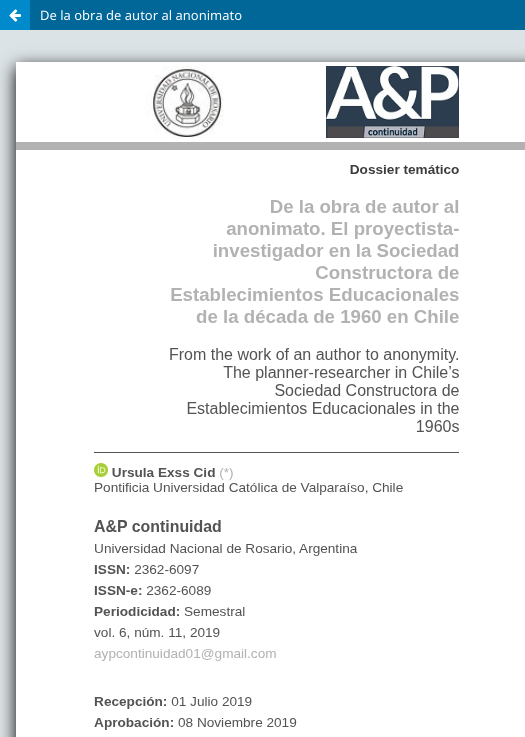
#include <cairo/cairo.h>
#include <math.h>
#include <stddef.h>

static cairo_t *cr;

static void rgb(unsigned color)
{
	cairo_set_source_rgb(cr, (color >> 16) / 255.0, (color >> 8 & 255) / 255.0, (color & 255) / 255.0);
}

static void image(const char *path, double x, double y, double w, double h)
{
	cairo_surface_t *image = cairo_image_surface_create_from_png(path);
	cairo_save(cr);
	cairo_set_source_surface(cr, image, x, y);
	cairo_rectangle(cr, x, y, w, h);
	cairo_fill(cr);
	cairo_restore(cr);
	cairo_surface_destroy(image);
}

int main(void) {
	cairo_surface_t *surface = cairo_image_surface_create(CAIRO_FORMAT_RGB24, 525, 737);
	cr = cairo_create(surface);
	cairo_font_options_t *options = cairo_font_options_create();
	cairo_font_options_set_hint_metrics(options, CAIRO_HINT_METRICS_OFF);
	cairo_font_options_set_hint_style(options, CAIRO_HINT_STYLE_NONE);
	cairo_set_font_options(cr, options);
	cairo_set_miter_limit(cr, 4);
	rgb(0xffffff);
	cairo_paint(cr);
	rgb(0x006798);
	cairo_rectangle(cr, 30, 0, 495, 30);
	cairo_fill(cr);
	rgb(0x008acb);
	cairo_rectangle(cr, 0, 0, 30, 30);
	cairo_fill(cr);
	image("img/1.png", 9, 9, 12, 13);
	image("img/2.png", 0, 30, 525, 707);
	cairo_select_font_face(cr, "Noto Sans", CAIRO_FONT_SLANT_NORMAL, CAIRO_FONT_WEIGHT_NORMAL);
	cairo_set_font_size(cr, 13);
	rgb(0xffffff);
	cairo_move_to(cr, 40, 20);
	cairo_show_text(cr, "De la obra de autor al anonimato");
	cairo_surface_write_to_png(surface, "page.png");
	cairo_font_options_destroy(options);
	cairo_destroy(cr);
	cairo_surface_destroy(surface);
	return 0;
}
